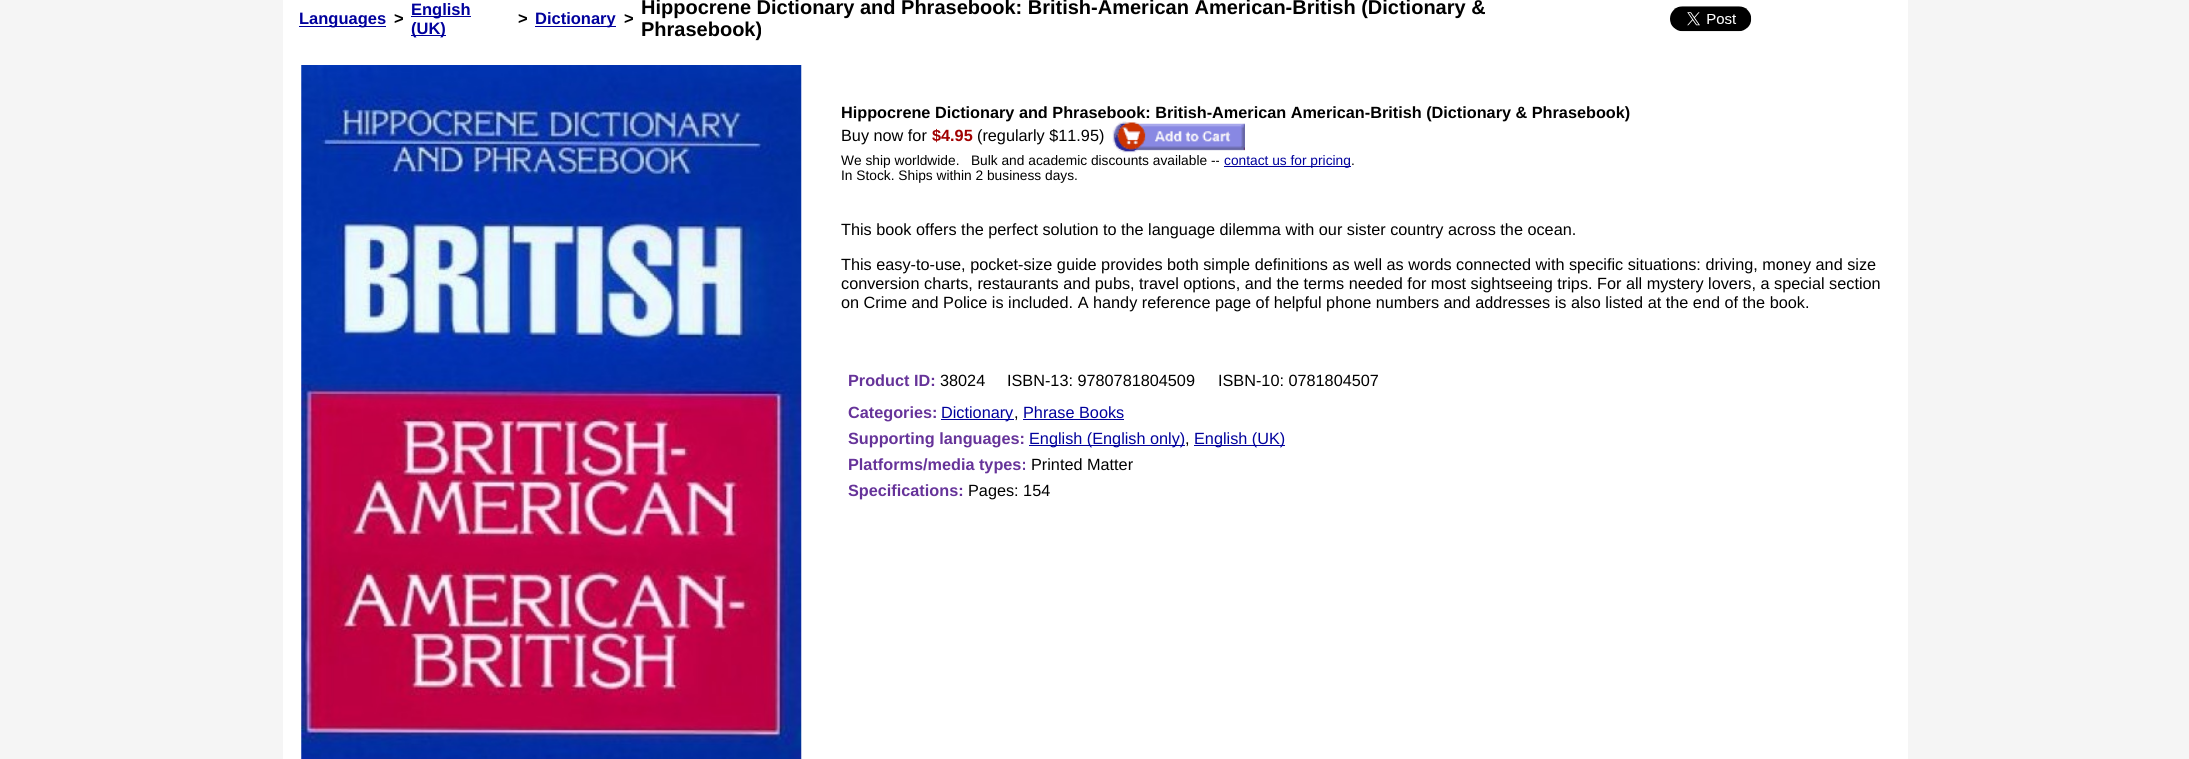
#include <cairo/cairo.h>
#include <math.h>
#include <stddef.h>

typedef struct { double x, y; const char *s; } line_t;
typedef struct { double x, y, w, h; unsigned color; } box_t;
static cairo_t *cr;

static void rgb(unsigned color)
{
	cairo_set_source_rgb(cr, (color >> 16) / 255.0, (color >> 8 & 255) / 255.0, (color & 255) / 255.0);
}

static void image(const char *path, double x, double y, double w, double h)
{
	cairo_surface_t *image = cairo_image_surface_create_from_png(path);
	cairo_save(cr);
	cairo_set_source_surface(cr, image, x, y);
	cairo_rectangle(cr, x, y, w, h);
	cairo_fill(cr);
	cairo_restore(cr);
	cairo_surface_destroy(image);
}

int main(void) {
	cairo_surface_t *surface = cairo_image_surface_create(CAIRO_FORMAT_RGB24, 2189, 759);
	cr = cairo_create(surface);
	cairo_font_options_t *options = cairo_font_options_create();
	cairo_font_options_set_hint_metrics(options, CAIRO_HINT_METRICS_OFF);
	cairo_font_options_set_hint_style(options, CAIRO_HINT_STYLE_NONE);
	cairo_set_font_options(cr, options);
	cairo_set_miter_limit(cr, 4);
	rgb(0xf5f5f5);
	cairo_paint(cr);
	{
		static const box_t items[] = {
			{283, 0, 1625, 759, 0xffffff},
			{299, 26, 87, 1, 0x00009c},
			{411, 16, 60, 1, 0x00009c},
			{411, 35, 35, 1, 0x00009c},
			{535, 26, 81, 1, 0x00009c},
		};
		for (size_t i = 0; i < sizeof items / sizeof *items; i++) {
			rgb(items[i].color);
			cairo_rectangle(cr, items[i].x, items[i].y, items[i].w, items[i].h);
			cairo_fill(cr);
		}
	}
	image("img/1.png", 1670, 6, 82, 26);
	image("img/2.png", 301, 65, 501, 694);
	{
		static const box_t items[] = {
			{1224, 166, 127, 1, 0x00009c},
			{941, 419, 73, 1, 0x00009c},
			{1023, 419, 101, 1, 0x00009c},
			{1029, 445, 156, 1, 0x00009c},
			{1194, 445, 91, 1, 0x00009c},
		};
		for (size_t i = 0; i < sizeof items / sizeof *items; i++) {
			rgb(items[i].color);
			cairo_rectangle(cr, items[i].x, items[i].y, items[i].w, items[i].h);
			cairo_fill(cr);
		}
	}
	cairo_select_font_face(cr, "Liberation Sans", CAIRO_FONT_SLANT_NORMAL, CAIRO_FONT_WEIGHT_BOLD);
	cairo_set_font_size(cr, 16.5);
	cairo_move_to(cr, 299, 24);
	cairo_show_text(cr, "Languages");
	rgb(0x000000);
	cairo_move_to(cr, 394, 24);
	cairo_show_text(cr, ">");
	rgb(0x00009c);
	cairo_move_to(cr, 411, 15);
	cairo_show_text(cr, "English");
	cairo_move_to(cr, 411, 34);
	cairo_show_text(cr, "(UK)");
	rgb(0x000000);
	cairo_move_to(cr, 518, 24);
	cairo_show_text(cr, ">");
	rgb(0x00009c);
	cairo_move_to(cr, 535, 24);
	cairo_show_text(cr, "Dictionary");
	rgb(0x000000);
	cairo_move_to(cr, 624, 24);
	cairo_show_text(cr, ">");
	cairo_set_font_size(cr, 20);
	cairo_move_to(cr, 641, 14);
	cairo_show_text(cr, "Hippocrene Dictionary and Phrasebook: British-American American-British (Dictionary &");
	cairo_move_to(cr, 641, 36);
	cairo_show_text(cr, "Phrasebook)");
	cairo_set_font_size(cr, 16.25);
	cairo_move_to(cr, 841, 118);
	cairo_show_text(cr, "Hippocrene Dictionary and Phrasebook: British-American American-British (Dictionary & Phrasebook)");
	cairo_select_font_face(cr, "Liberation Sans", CAIRO_FONT_SLANT_NORMAL, CAIRO_FONT_WEIGHT_NORMAL);
	cairo_move_to(cr, 841, 141);
	cairo_show_text(cr, "Buy now for");
	cairo_select_font_face(cr, "Liberation Sans", CAIRO_FONT_SLANT_NORMAL, CAIRO_FONT_WEIGHT_BOLD);
	rgb(0xa00000);
	cairo_move_to(cr, 932, 141);
	cairo_show_text(cr, "$4.95");
	cairo_select_font_face(cr, "Liberation Sans", CAIRO_FONT_SLANT_NORMAL, CAIRO_FONT_WEIGHT_NORMAL);
	rgb(0x000000);
	cairo_move_to(cr, 977, 141);
	cairo_show_text(cr, "(regularly $11.95)");
	image("img/3.png", 1112, 121, 133, 32);
	cairo_set_font_size(cr, 13.75);
	cairo_move_to(cr, 841, 165);
	cairo_show_text(cr, "We ship worldwide.   Bulk and academic discounts available --");
	rgb(0x00009c);
	cairo_move_to(cr, 1224, 165);
	cairo_show_text(cr, "contact us for pricing");
	rgb(0x000000);
	cairo_move_to(cr, 1351, 165);
	cairo_show_text(cr, ".");
	cairo_move_to(cr, 841, 180);
	cairo_show_text(cr, "In Stock. Ships within 2 business days.");
	cairo_set_font_size(cr, 16.25);
	{
		static const line_t items[] = {
			{841, 235, "This book offers the perfect solution to the language dilemma with our sister country across the ocean."},
			{841, 270, "This easy-to-use, pocket-size guide provides both simple definitions as well as words connected with specific situations: driving, money and size"},
			{841, 289, "conversion charts, restaurants and pubs, travel options, and the terms needed for most sightseeing trips. For all mystery lovers, a special section"},
			{841, 308, "on Crime and Police is included. A handy reference page of helpful phone numbers and addresses is also listed at the end of the book."},
		};
		for (size_t i = 0; i < sizeof items / sizeof *items; i++) {
			cairo_move_to(cr, items[i].x, items[i].y);
			cairo_show_text(cr, items[i].s);
		}
	}
	cairo_select_font_face(cr, "Liberation Sans", CAIRO_FONT_SLANT_NORMAL, CAIRO_FONT_WEIGHT_BOLD);
	rgb(0x663399);
	cairo_move_to(cr, 848, 386);
	cairo_show_text(cr, "Product ID:");
	cairo_select_font_face(cr, "Liberation Sans", CAIRO_FONT_SLANT_NORMAL, CAIRO_FONT_WEIGHT_NORMAL);
	rgb(0x000000);
	{
		static const line_t items[] = {
			{940, 386, "38024"},
			{1007, 386, "ISBN-13: 9780781804509"},
			{1218, 386, "ISBN-10: 0781804507"},
		};
		for (size_t i = 0; i < sizeof items / sizeof *items; i++) {
			cairo_move_to(cr, items[i].x, items[i].y);
			cairo_show_text(cr, items[i].s);
		}
	}
	cairo_select_font_face(cr, "Liberation Sans", CAIRO_FONT_SLANT_NORMAL, CAIRO_FONT_WEIGHT_BOLD);
	rgb(0x663399);
	cairo_move_to(cr, 848, 418);
	cairo_show_text(cr, "Categories:");
	cairo_select_font_face(cr, "Liberation Sans", CAIRO_FONT_SLANT_NORMAL, CAIRO_FONT_WEIGHT_NORMAL);
	rgb(0x00009c);
	cairo_move_to(cr, 941, 418);
	cairo_show_text(cr, "Dictionary");
	rgb(0x000000);
	cairo_move_to(cr, 1014, 418);
	cairo_show_text(cr, ",");
	rgb(0x00009c);
	cairo_move_to(cr, 1023, 418);
	cairo_show_text(cr, "Phrase Books");
	cairo_select_font_face(cr, "Liberation Sans", CAIRO_FONT_SLANT_NORMAL, CAIRO_FONT_WEIGHT_BOLD);
	rgb(0x663399);
	cairo_move_to(cr, 848, 444);
	cairo_show_text(cr, "Supporting languages:");
	cairo_select_font_face(cr, "Liberation Sans", CAIRO_FONT_SLANT_NORMAL, CAIRO_FONT_WEIGHT_NORMAL);
	rgb(0x00009c);
	cairo_move_to(cr, 1029, 444);
	cairo_show_text(cr, "English (English only)");
	rgb(0x000000);
	cairo_move_to(cr, 1185, 444);
	cairo_show_text(cr, ",");
	rgb(0x00009c);
	cairo_move_to(cr, 1194, 444);
	cairo_show_text(cr, "English (UK)");
	cairo_select_font_face(cr, "Liberation Sans", CAIRO_FONT_SLANT_NORMAL, CAIRO_FONT_WEIGHT_BOLD);
	rgb(0x663399);
	cairo_move_to(cr, 848, 470);
	cairo_show_text(cr, "Platforms/media types:");
	cairo_select_font_face(cr, "Liberation Sans", CAIRO_FONT_SLANT_NORMAL, CAIRO_FONT_WEIGHT_NORMAL);
	rgb(0x000000);
	cairo_move_to(cr, 1031, 470);
	cairo_show_text(cr, "Printed Matter");
	cairo_select_font_face(cr, "Liberation Sans", CAIRO_FONT_SLANT_NORMAL, CAIRO_FONT_WEIGHT_BOLD);
	rgb(0x663399);
	cairo_move_to(cr, 848, 496);
	cairo_show_text(cr, "Specifications:");
	cairo_select_font_face(cr, "Liberation Sans", CAIRO_FONT_SLANT_NORMAL, CAIRO_FONT_WEIGHT_NORMAL);
	rgb(0x000000);
	cairo_move_to(cr, 968, 496);
	cairo_show_text(cr, "Pages: 154");
	cairo_surface_write_to_png(surface, "page.png");
	cairo_font_options_destroy(options);
	cairo_destroy(cr);
	cairo_surface_destroy(surface);
	return 0;
}
